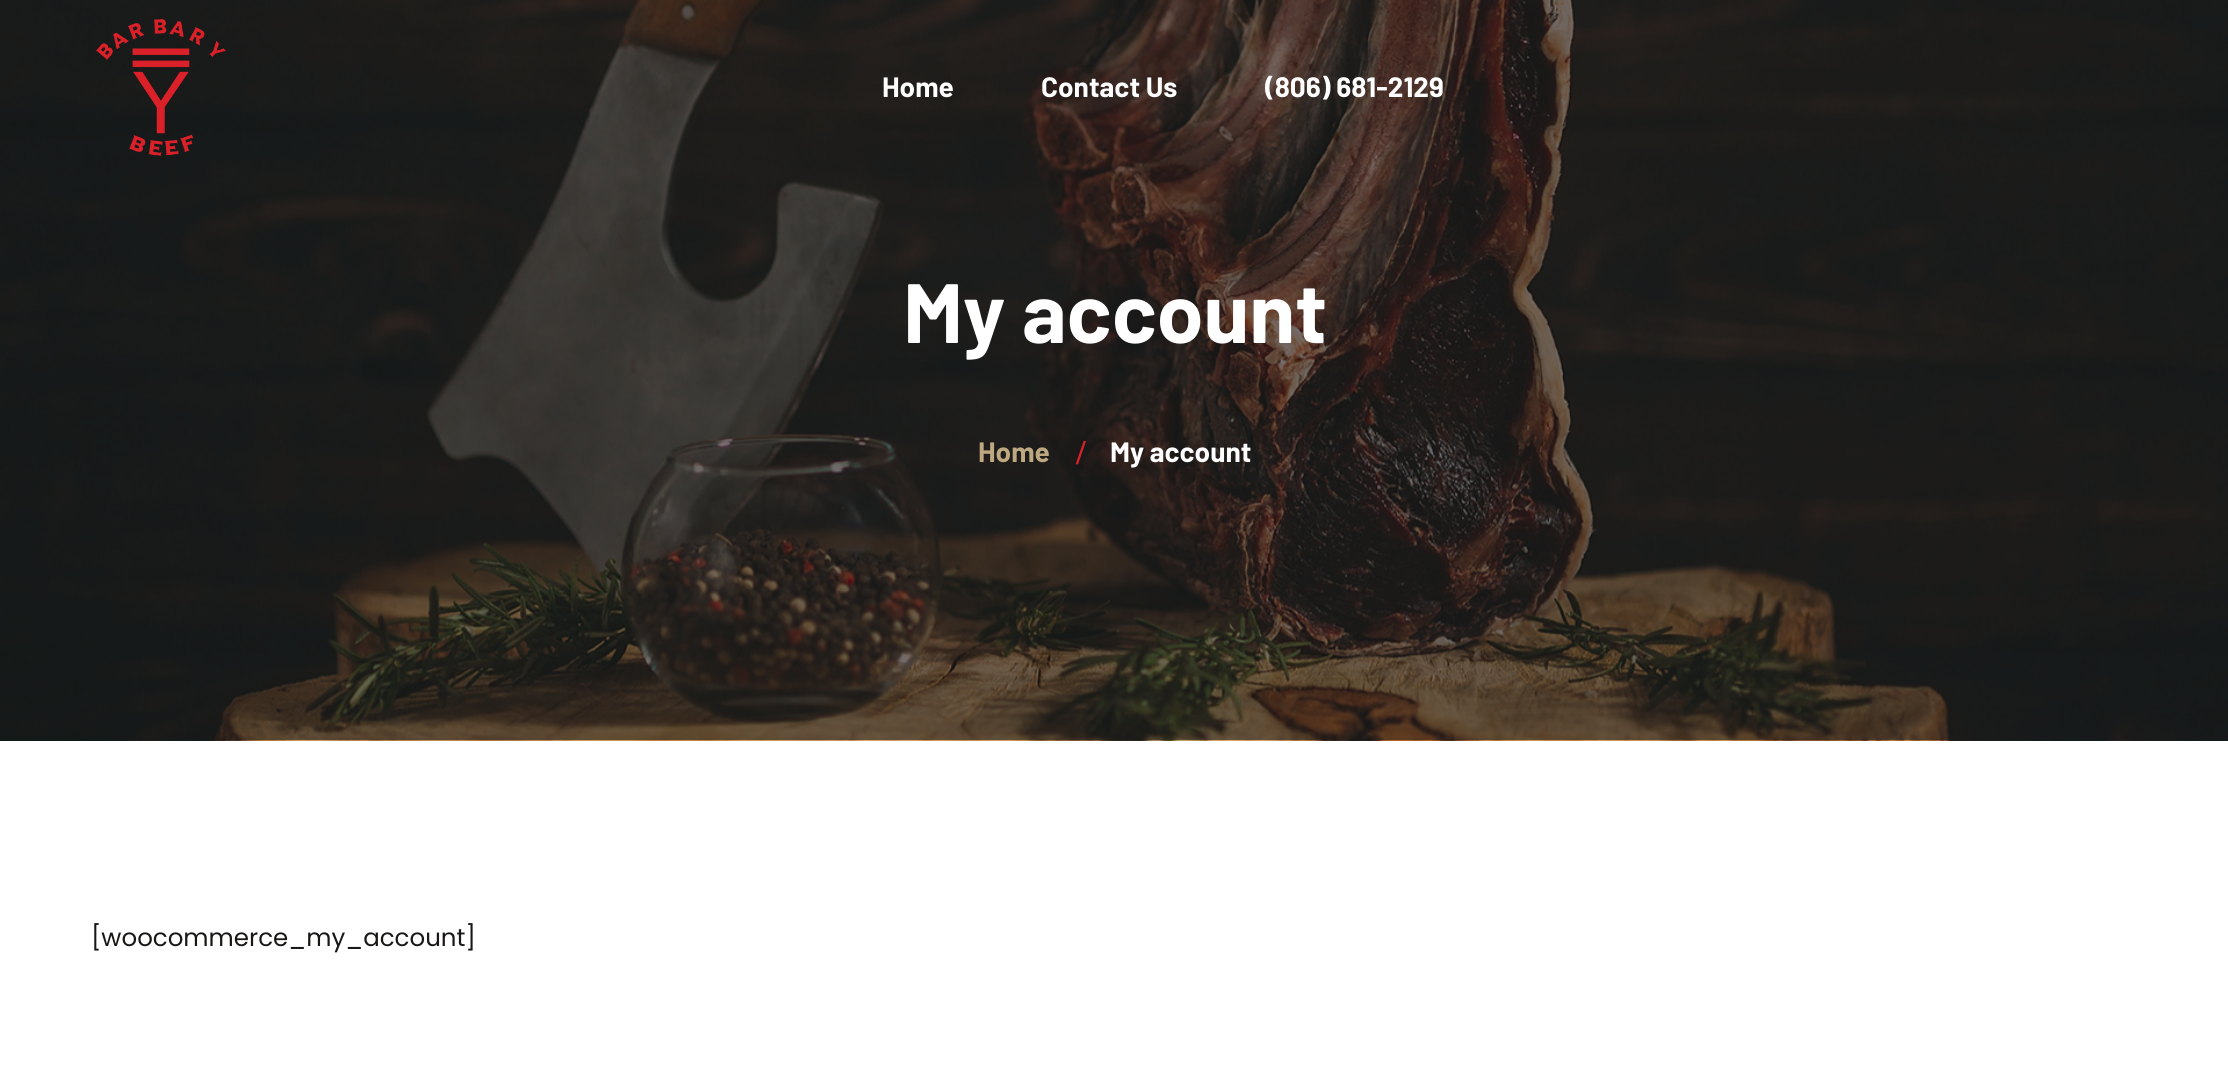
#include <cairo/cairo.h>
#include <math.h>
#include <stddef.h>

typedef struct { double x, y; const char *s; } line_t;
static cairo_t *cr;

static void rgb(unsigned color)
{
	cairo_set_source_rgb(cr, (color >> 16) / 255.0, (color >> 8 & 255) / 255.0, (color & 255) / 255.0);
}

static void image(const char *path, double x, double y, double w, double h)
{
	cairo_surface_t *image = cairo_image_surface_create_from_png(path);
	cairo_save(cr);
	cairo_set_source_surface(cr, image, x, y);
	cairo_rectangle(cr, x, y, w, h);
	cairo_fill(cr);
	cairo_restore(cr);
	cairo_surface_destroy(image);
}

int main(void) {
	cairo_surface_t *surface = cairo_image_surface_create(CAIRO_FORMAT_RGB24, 2228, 1091);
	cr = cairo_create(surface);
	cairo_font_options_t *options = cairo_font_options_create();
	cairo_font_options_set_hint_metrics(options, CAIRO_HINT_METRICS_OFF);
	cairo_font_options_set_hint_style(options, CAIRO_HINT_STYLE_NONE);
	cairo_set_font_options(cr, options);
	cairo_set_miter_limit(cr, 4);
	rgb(0xffffff);
	cairo_paint(cr);
	image("img/2.png", 0, 0, 2228, 741);
	image("img/1.png", 96, 19, 130, 137);
	cairo_select_font_face(cr, "Barlow", CAIRO_FONT_SLANT_NORMAL, CAIRO_FONT_WEIGHT_BOLD);
	cairo_set_font_size(cr, 28);
	rgb(0xffffff);
	{
		static const line_t items[] = {
			{882, 97, "Home"},
			{1041, 97, "Contact Us"},
			{1265, 97, "(806) 681-2129"},
		};
		for (size_t i = 0; i < sizeof items / sizeof *items; i++) {
			cairo_move_to(cr, items[i].x, items[i].y);
			cairo_show_text(cr, items[i].s);
		}
	}
	cairo_set_font_size(cr, 84);
	cairo_move_to(cr, 903, 343);
	cairo_show_text(cr, "My account");
	cairo_set_font_size(cr, 28);
	rgb(0xbda881);
	cairo_move_to(cr, 978, 462);
	cairo_show_text(cr, "Home");
	cairo_select_font_face(cr, "Liberation Serif", CAIRO_FONT_SLANT_NORMAL, CAIRO_FONT_WEIGHT_BOLD);
	cairo_set_font_size(cr, 35);
	rgb(0xda2028);
	cairo_move_to(cr, 1076, 464);
	cairo_show_text(cr, "/");
	cairo_select_font_face(cr, "Barlow", CAIRO_FONT_SLANT_NORMAL, CAIRO_FONT_WEIGHT_BOLD);
	cairo_set_font_size(cr, 28);
	rgb(0xffffff);
	cairo_move_to(cr, 1110, 462);
	cairo_show_text(cr, "My account");
	cairo_select_font_face(cr, "Poppins", CAIRO_FONT_SLANT_NORMAL, CAIRO_FONT_WEIGHT_NORMAL);
	cairo_set_font_size(cr, 24.5);
	rgb(0x191716);
	cairo_move_to(cr, 91, 946);
	cairo_show_text(cr, "[woocommerce_my_account]");
	cairo_surface_write_to_png(surface, "page.png");
	cairo_font_options_destroy(options);
	cairo_destroy(cr);
	cairo_surface_destroy(surface);
	return 0;
}
